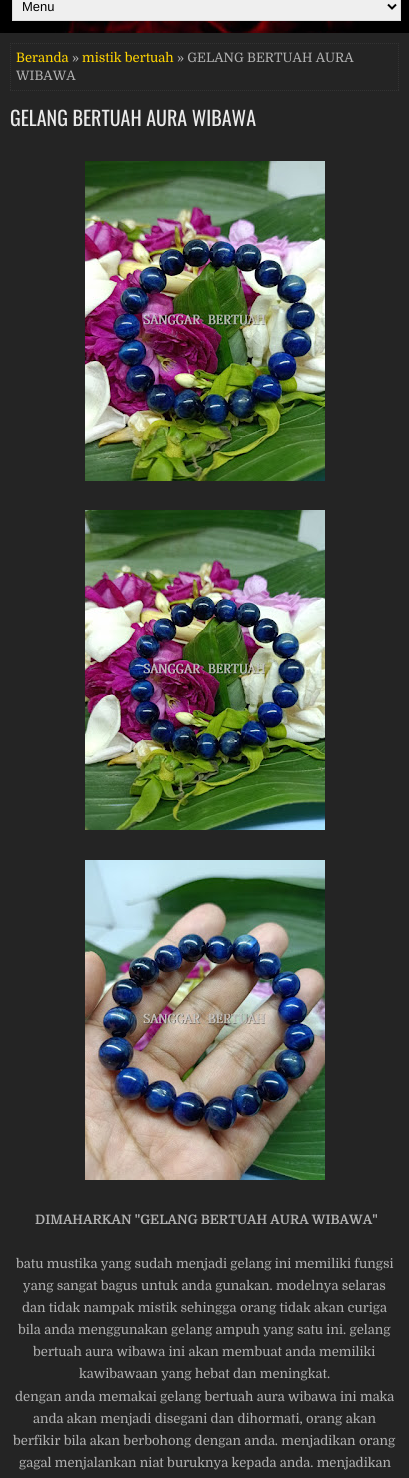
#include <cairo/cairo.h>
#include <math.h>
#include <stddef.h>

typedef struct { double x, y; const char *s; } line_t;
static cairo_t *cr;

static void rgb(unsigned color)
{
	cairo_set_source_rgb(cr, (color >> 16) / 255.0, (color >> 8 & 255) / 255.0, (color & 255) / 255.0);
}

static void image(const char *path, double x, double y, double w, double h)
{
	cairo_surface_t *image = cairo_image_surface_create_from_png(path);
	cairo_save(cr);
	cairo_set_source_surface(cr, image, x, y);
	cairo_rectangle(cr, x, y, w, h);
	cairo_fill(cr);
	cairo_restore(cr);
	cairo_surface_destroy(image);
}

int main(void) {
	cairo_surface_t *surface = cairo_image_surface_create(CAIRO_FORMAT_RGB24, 409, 1478);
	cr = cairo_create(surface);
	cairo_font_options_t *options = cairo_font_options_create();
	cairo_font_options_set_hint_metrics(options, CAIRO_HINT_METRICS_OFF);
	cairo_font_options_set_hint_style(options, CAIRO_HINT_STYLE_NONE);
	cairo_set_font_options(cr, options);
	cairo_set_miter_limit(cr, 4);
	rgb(0xffffff);
	cairo_paint(cr);
	image("img/1.png", 0, 0, 409, 33);
	rgb(0xefefef);
	cairo_rectangle(cr, 12.5, -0.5, 388, 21);
	cairo_fill_preserve(cr);
	rgb(0xdddddd);
	cairo_set_line_width(cr, 1);
	cairo_stroke(cr);
	cairo_new_path(cr);
	cairo_move_to(cr, 388, 4.5);
	cairo_line_to(cr, 392, 8.5);
	cairo_line_to(cr, 396, 4.5);
	rgb(0x000000);
	cairo_set_line_width(cr, 2);
	cairo_stroke(cr);
	rgb(0x242424);
	cairo_rectangle(cr, 0, 33, 409, 1445);
	cairo_fill(cr);
	cairo_new_path(cr);
	cairo_move_to(cr, 10, 43.5);
	cairo_line_to(cr, 399, 43.5);
	rgb(0x333333);
	cairo_set_line_width(cr, 1);
	cairo_set_dash(cr, (double[]){1, 1}, 2, 0);
	cairo_stroke(cr);
	cairo_new_path(cr);
	cairo_move_to(cr, 398.5, 43);
	cairo_line_to(cr, 398.5, 91);
	cairo_stroke(cr);
	cairo_new_path(cr);
	cairo_move_to(cr, 10, 90.5);
	cairo_line_to(cr, 399, 90.5);
	cairo_stroke(cr);
	cairo_new_path(cr);
	cairo_move_to(cr, 10.5, 43);
	cairo_line_to(cr, 10.5, 91);
	cairo_stroke(cr);
	image("img/2.png", 85, 161, 240, 320);
	image("img/3.png", 85, 510, 240, 320);
	image("img/4.png", 85, 860, 240, 320);
	cairo_select_font_face(cr, "Liberation Sans", CAIRO_FONT_SLANT_NORMAL, CAIRO_FONT_WEIGHT_NORMAL);
	cairo_set_font_size(cr, 13);
	rgb(0x000000);
	cairo_move_to(cr, 22, 11);
	cairo_show_text(cr, "Menu");
	cairo_select_font_face(cr, "Domine", CAIRO_FONT_SLANT_NORMAL, CAIRO_FONT_WEIGHT_NORMAL);
	rgb(0xffd400);
	cairo_move_to(cr, 16, 62);
	cairo_show_text(cr, "Beranda");
	rgb(0xb0b0b0);
	cairo_move_to(cr, 72, 62);
	cairo_show_text(cr, "»");
	rgb(0xffd400);
	cairo_move_to(cr, 82, 62);
	cairo_show_text(cr, "mistik bertuah");
	rgb(0xb0b0b0);
	cairo_move_to(cr, 177, 62);
	cairo_show_text(cr, "» GELANG BERTUAH AURA");
	cairo_move_to(cr, 16, 80);
	cairo_show_text(cr, "WIBAWA");
	cairo_select_font_face(cr, "Oswald", CAIRO_FONT_SLANT_NORMAL, CAIRO_FONT_WEIGHT_NORMAL);
	cairo_set_font_size(cr, 20);
	rgb(0xe9e9e9);
	cairo_move_to(cr, 10, 126);
	cairo_show_text(cr, "GELANG BERTUAH AURA WIBAWA");
	cairo_select_font_face(cr, "Domine", CAIRO_FONT_SLANT_NORMAL, CAIRO_FONT_WEIGHT_BOLD);
	cairo_set_font_size(cr, 13);
	rgb(0xb0b0b0);
	cairo_move_to(cr, 35, 1224);
	cairo_show_text(cr, "DIMAHARKAN \"GELANG BERTUAH AURA WIBAWA\"");
	cairo_select_font_face(cr, "Domine", CAIRO_FONT_SLANT_NORMAL, CAIRO_FONT_WEIGHT_NORMAL);
	{
		static const line_t items[] = {
			{16, 1268, "batu mustika yang sudah menjadi gelang ini memiliki fungsi"},
			{23, 1290, "yang sangat bagus untuk anda gunakan. modelnya selaras"},
			{22, 1312, "dan tidak nampak mistik sehingga orang tidak akan curiga"},
			{18, 1334, "bila anda menggunakan gelang ampuh yang satu ini. gelang"},
			{33, 1356, "bertuah aura wibawa ini akan membuat anda memiliki"},
			{79, 1378, "kawibawaan yang hebat dan meningkat."},
			{15, 1401, "dengan anda memakai gelang bertuah aura wibawa ini maka"},
			{33, 1423, "anda akan menjadi disegani dan dihormati, orang akan"},
			{13, 1445, "berfikir bila akan berbohong dengan anda. menjadikan orang"},
			{19, 1467, "gagal menjalankan niat buruknya kepada anda. menjadikan"},
		};
		for (size_t i = 0; i < sizeof items / sizeof *items; i++) {
			cairo_move_to(cr, items[i].x, items[i].y);
			cairo_show_text(cr, items[i].s);
		}
	}
	cairo_surface_write_to_png(surface, "page.png");
	cairo_font_options_destroy(options);
	cairo_destroy(cr);
	cairo_surface_destroy(surface);
	return 0;
}
